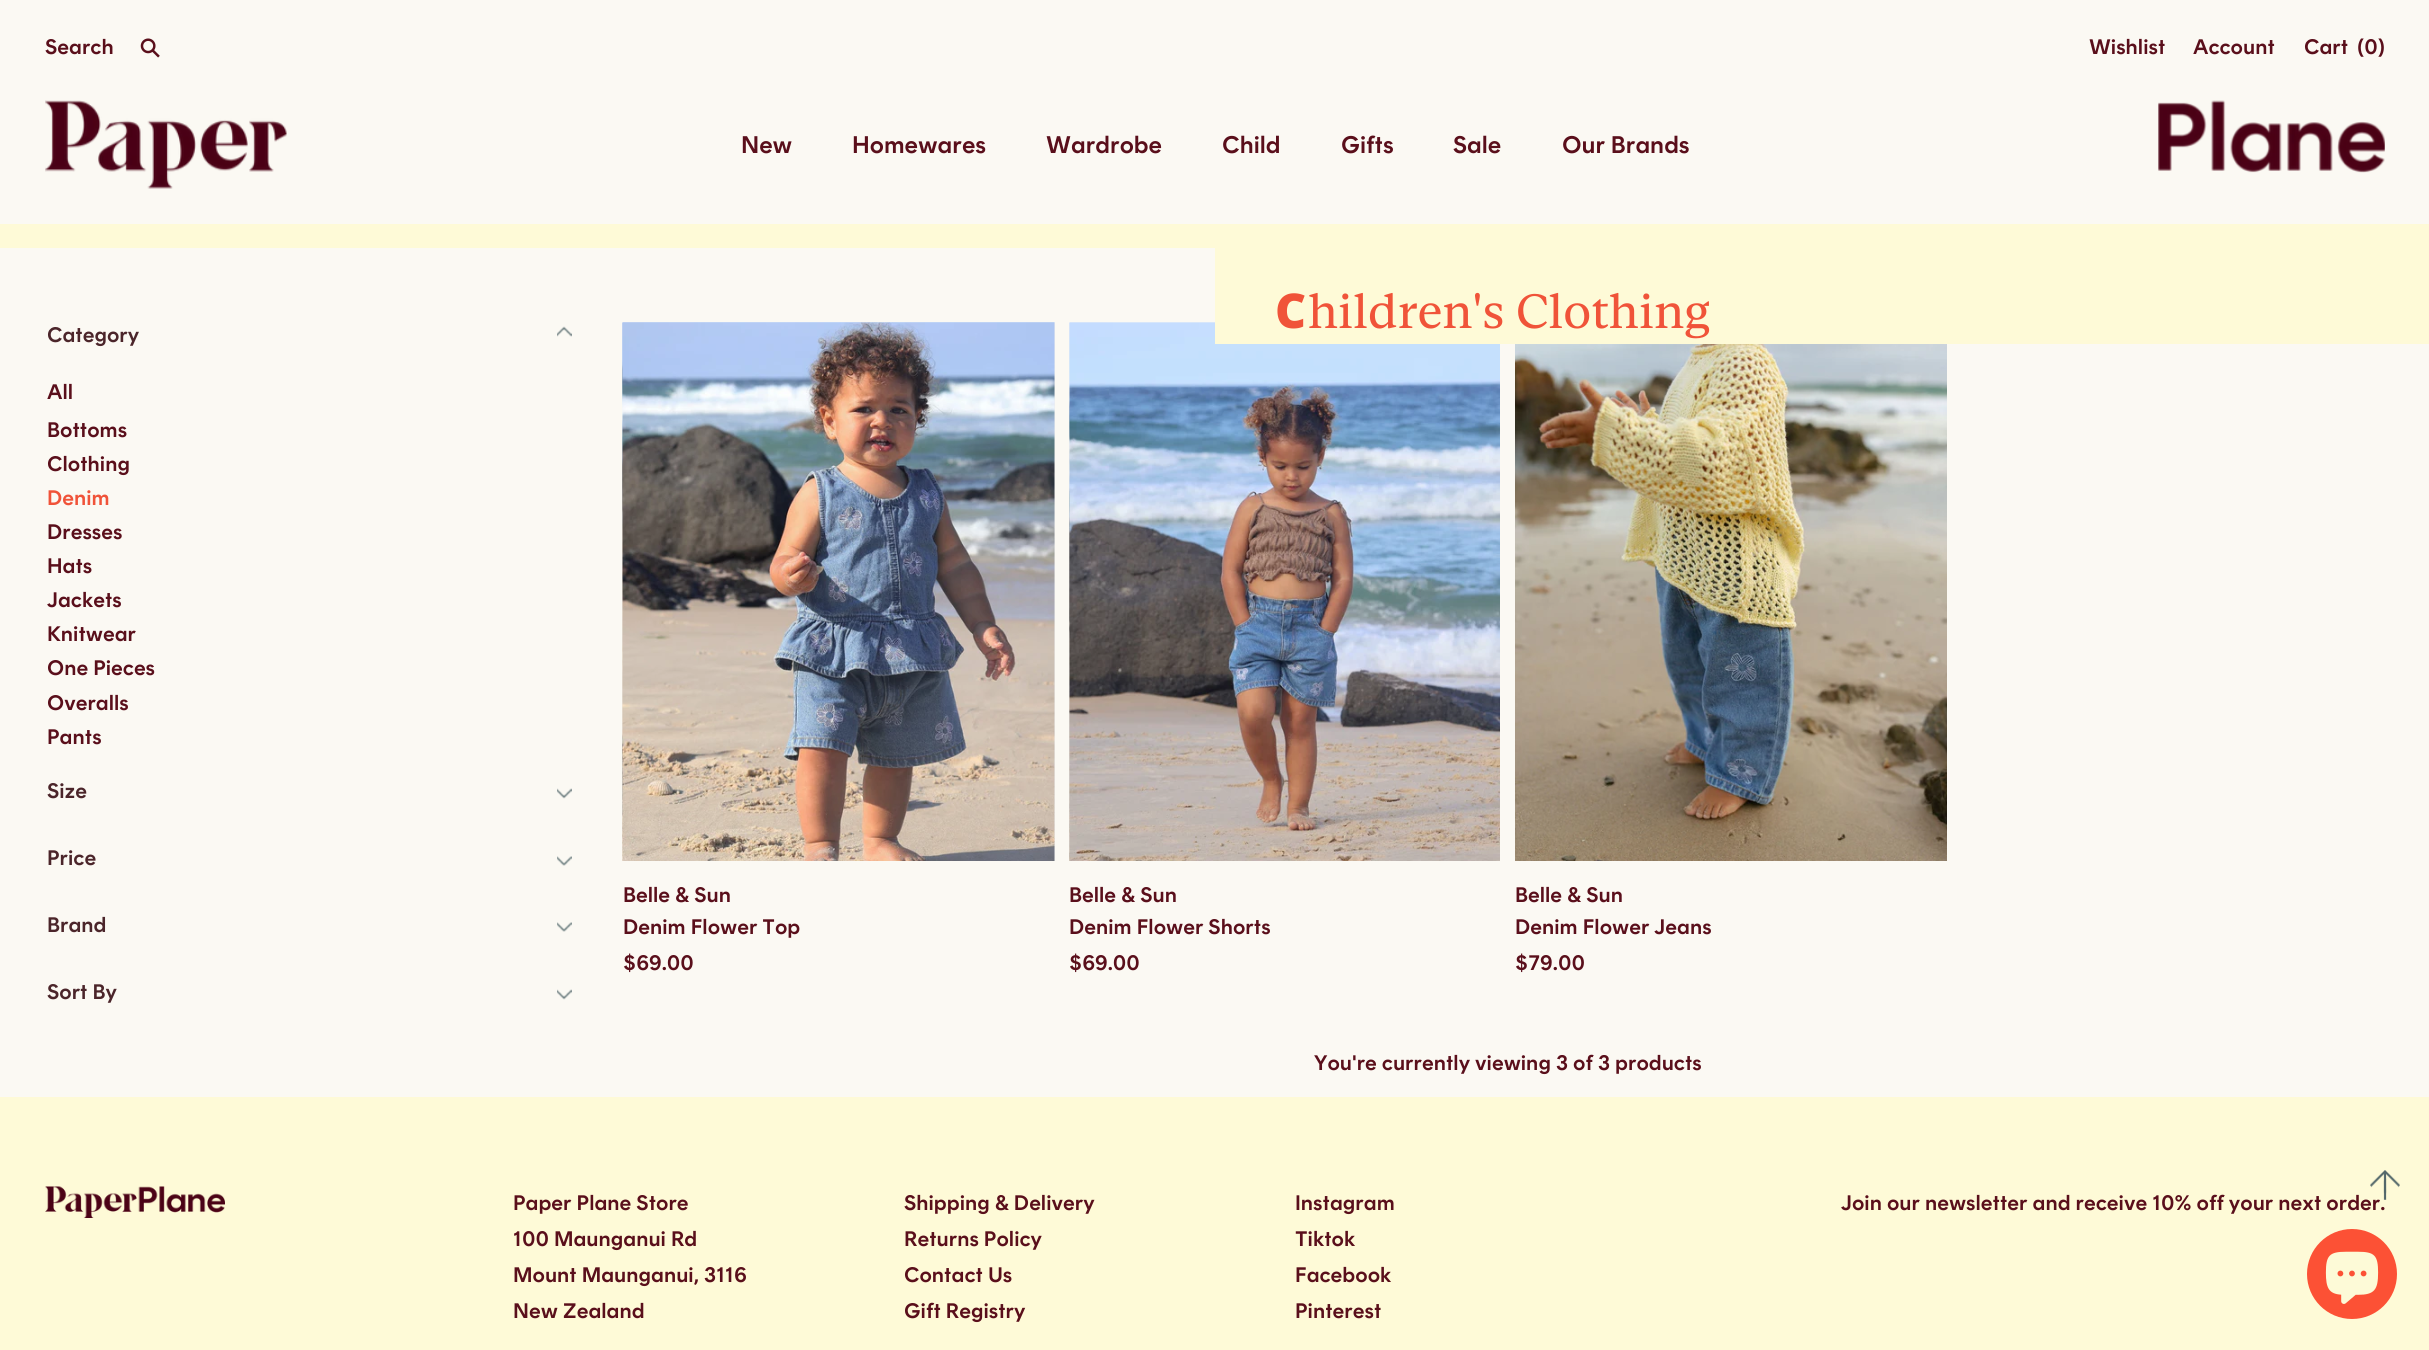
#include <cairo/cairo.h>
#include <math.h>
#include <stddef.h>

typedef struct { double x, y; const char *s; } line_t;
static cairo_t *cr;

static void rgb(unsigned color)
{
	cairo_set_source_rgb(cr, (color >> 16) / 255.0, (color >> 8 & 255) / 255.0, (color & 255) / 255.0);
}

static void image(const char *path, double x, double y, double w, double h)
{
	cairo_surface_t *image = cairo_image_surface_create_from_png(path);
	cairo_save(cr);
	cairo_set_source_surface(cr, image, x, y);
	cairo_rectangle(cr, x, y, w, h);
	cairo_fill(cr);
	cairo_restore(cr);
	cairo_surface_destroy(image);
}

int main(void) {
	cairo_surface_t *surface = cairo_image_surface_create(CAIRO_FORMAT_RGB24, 2429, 1350);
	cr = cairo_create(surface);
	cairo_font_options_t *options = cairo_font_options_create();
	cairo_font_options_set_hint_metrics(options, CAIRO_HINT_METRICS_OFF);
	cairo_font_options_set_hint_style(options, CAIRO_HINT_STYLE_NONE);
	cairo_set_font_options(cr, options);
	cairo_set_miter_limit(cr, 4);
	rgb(0xfbf9f3);
	cairo_paint(cr);
	image("img/1.png", 140, 38, 20, 20);
	image("img/2.png", 45, 100, 242, 89);
	image("img/3.png", 2158, 100, 227, 73);
	rgb(0xfefad7);
	cairo_rectangle(cr, 0, 224, 1215, 24);
	cairo_fill(cr);
	image("img/9.png", 1069, 322, 146, 539);
	image("img/10.png", 1069, 322, 431, 539);
	cairo_rectangle(cr, 1215, 224, 1214, 120);
	cairo_fill(cr);
	image("img/4.png", 557, 326, 15, 11);
	image("img/5.png", 557, 788, 15, 11);
	image("img/6.png", 557, 856, 15, 10);
	image("img/6.png", 557, 922, 15, 10);
	image("img/5.png", 557, 989, 15, 11);
	image("img/7.png", 622, 322, 433, 539);
	rgb(0xededed);
	cairo_rectangle(cr, 1054, 323, 1, 538);
	cairo_fill(cr);
	image("img/8.png", 622, 322, 433, 539);
	image("img/11.png", 1515, 344, 432, 517);
	rgb(0xfefad7);
	cairo_rectangle(cr, 0, 1097, 2429, 253);
	cairo_fill(cr);
	image("img/13.png", 45, 1186, 180, 32);
	rgb(0xfc5135);
	cairo_arc(cr, 2352, 1274, 45, 0, 2 * M_PI);
	cairo_fill(cr);
	image("img/14.png", 2325, 1251, 54, 53);
	cairo_select_font_face(cr, "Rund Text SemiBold", CAIRO_FONT_SLANT_NORMAL, CAIRO_FONT_WEIGHT_NORMAL);
	cairo_set_font_size(cr, 21);
	rgb(0x5a0f1b);
	{
		static const line_t items[] = {
			{45, 54, "Search"},
			{2089, 54, "Wishlist"},
			{2193, 54, "Account"},
			{2304, 54, "Cart"},
			{2357, 54, "(0)"},
		};
		for (size_t i = 0; i < sizeof items / sizeof *items; i++) {
			cairo_move_to(cr, items[i].x, items[i].y);
			cairo_show_text(cr, items[i].s);
		}
	}
	cairo_set_font_size(cr, 24);
	{
		static const line_t items[] = {
			{741, 153, "New"},
			{852, 153, "Homewares"},
			{1046, 153, "Wardrobe"},
			{1222, 153, "Child"},
			{1341, 153, "Gifts"},
			{1453, 153, "Sale"},
			{1562, 153, "Our Brands"},
		};
		for (size_t i = 0; i < sizeof items / sizeof *items; i++) {
			cairo_move_to(cr, items[i].x, items[i].y);
			cairo_show_text(cr, items[i].s);
		}
	}
	cairo_select_font_face(cr, "Noto Sans Black", CAIRO_FONT_SLANT_NORMAL, CAIRO_FONT_WEIGHT_NORMAL);
	cairo_set_font_size(cr, 48);
	rgb(0xf05339);
	cairo_move_to(cr, 1275, 328);
	cairo_show_text(cr, "C");
	cairo_select_font_face(cr, "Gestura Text", CAIRO_FONT_SLANT_NORMAL, CAIRO_FONT_WEIGHT_NORMAL);
	cairo_move_to(cr, 1308, 328);
	cairo_show_text(cr, "hildren's Clothing");
	cairo_select_font_face(cr, "Rund Text SemiBold", CAIRO_FONT_SLANT_NORMAL, CAIRO_FONT_WEIGHT_NORMAL);
	cairo_set_font_size(cr, 21);
	rgb(0x4b252a);
	cairo_move_to(cr, 47, 342);
	cairo_show_text(cr, "Category");
	rgb(0x5a0f1b);
	{
		static const line_t items[] = {
			{47, 399, "All"},
			{47, 437, "Bottoms"},
			{47, 471, "Clothing"},
		};
		for (size_t i = 0; i < sizeof items / sizeof *items; i++) {
			cairo_move_to(cr, items[i].x, items[i].y);
			cairo_show_text(cr, items[i].s);
		}
	}
	rgb(0xf05339);
	cairo_move_to(cr, 47, 505);
	cairo_show_text(cr, "Denim");
	rgb(0x5a0f1b);
	{
		static const line_t items[] = {
			{47, 539, "Dresses"},
			{47, 573, "Hats"},
			{47, 607, "Jackets"},
			{47, 641, "Knitwear"},
			{47, 675, "One Pieces"},
			{47, 710, "Overalls"},
			{47, 744, "Pants"},
		};
		for (size_t i = 0; i < sizeof items / sizeof *items; i++) {
			cairo_move_to(cr, items[i].x, items[i].y);
			cairo_show_text(cr, items[i].s);
		}
	}
	rgb(0x4b252a);
	{
		static const line_t items[] = {
			{47, 798, "Size"},
			{47, 865, "Price"},
			{47, 932, "Brand"},
			{47, 999, "Sort By"},
		};
		for (size_t i = 0; i < sizeof items / sizeof *items; i++) {
			cairo_move_to(cr, items[i].x, items[i].y);
			cairo_show_text(cr, items[i].s);
		}
	}
	rgb(0x5a0f1b);
	{
		static const line_t items[] = {
			{623, 902, "Belle & Sun"},
			{623, 934, "Denim Flower Top"},
			{623, 970, "$69.00"},
			{1069, 902, "Belle & Sun"},
			{1069, 934, "Denim Flower Shorts"},
			{1069, 970, "$69.00"},
			{1515, 902, "Belle & Sun"},
			{1515, 934, "Denim Flower Jeans"},
			{1515, 970, "$79.00"},
			{1314, 1070, "You're currently viewing 3 of 3 products"},
			{513, 1210, "Paper Plane Store"},
			{513, 1246, "100 Maunganui Rd"},
			{513, 1282, "Mount Maunganui, 3116"},
			{513, 1318, "New Zealand"},
			{904, 1210, "Shipping & Delivery"},
			{904, 1246, "Returns Policy"},
			{904, 1282, "Contact Us"},
			{904, 1318, "Gift Registry"},
			{1295, 1210, "Instagram"},
			{1295, 1246, "Tiktok"},
			{1295, 1282, "Facebook"},
			{1295, 1318, "Pinterest"},
			{1841, 1210, "Join our newsletter and receive 10% off your next order."},
		};
		for (size_t i = 0; i < sizeof items / sizeof *items; i++) {
			cairo_move_to(cr, items[i].x, items[i].y);
			cairo_show_text(cr, items[i].s);
		}
	}
	image("img/12.png", 2370, 1170, 30, 30);
	cairo_surface_write_to_png(surface, "page.png");
	cairo_font_options_destroy(options);
	cairo_destroy(cr);
	cairo_surface_destroy(surface);
	return 0;
}
